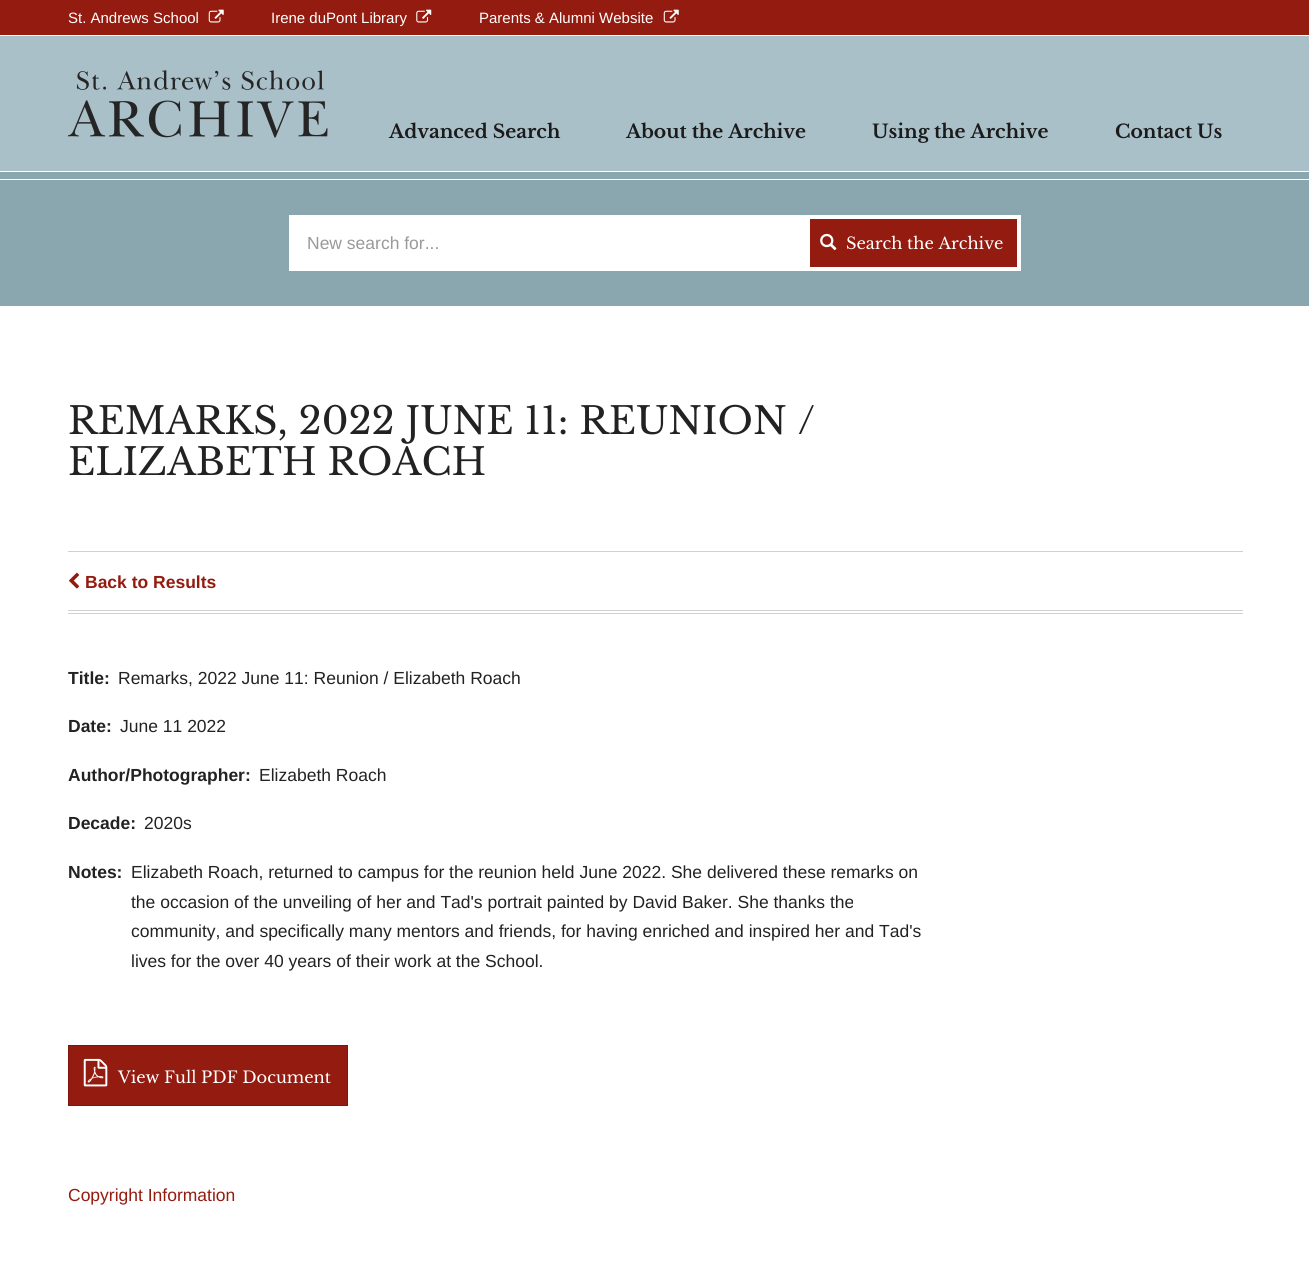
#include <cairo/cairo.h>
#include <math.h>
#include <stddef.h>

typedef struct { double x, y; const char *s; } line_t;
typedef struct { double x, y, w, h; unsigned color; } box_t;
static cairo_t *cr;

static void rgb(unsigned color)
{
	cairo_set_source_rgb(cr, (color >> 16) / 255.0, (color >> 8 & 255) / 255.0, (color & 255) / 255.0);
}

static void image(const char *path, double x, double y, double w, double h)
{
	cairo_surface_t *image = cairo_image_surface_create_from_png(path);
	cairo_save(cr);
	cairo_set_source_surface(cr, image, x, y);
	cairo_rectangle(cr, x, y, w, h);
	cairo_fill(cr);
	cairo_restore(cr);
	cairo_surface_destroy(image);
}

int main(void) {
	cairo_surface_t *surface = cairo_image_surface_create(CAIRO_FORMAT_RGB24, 1309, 1281);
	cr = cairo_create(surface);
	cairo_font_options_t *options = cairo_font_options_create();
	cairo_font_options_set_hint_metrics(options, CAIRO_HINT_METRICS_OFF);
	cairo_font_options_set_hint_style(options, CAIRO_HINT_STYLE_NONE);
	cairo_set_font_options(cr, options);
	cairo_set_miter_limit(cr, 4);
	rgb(0xffffff);
	cairo_paint(cr);
	rgb(0x941b0f);
	cairo_rectangle(cr, 0, 0, 1309, 35);
	cairo_fill(cr);
	image("img/1.png", 208, 9, 16, 14);
	image("img/2.png", 416, 9, 16, 14);
	image("img/1.png", 663, 9, 16, 14);
	rgb(0xaac0c9);
	cairo_rectangle(cr, 0, 36, 1309, 135);
	cairo_fill(cr);
	image("img/3.png", 68, 70, 260, 68);
	{
		static const box_t items[] = {
			{0, 172, 1309, 7, 0x8aa7b0},
			{0, 180, 1309, 126, 0x8aa7b0},
			{289, 215, 517, 56, 0xffffff},
		};
		for (size_t i = 0; i < sizeof items / sizeof *items; i++) {
			rgb(items[i].color);
			cairo_rectangle(cr, items[i].x, items[i].y, items[i].w, items[i].h);
			cairo_fill(cr);
		}
	}
	rgb(0x941b0f);
	cairo_rectangle(cr, 808, 217, 211, 52);
	cairo_fill_preserve(cr);
	rgb(0xffffff);
	cairo_set_line_width(cr, 4);
	cairo_stroke(cr);
	image("img/4.png", 820, 233, 17, 18);
	rgb(0xd0d0d0);
	cairo_rectangle(cr, 68, 551, 1175, 1);
	cairo_fill(cr);
	cairo_rectangle(cr, 68, 610, 1175, 1);
	cairo_fill(cr);
	image("img/5.png", 69, 572, 11, 17);
	cairo_rectangle(cr, 68, 613, 1175, 1);
	cairo_fill(cr);
	rgb(0x941b0f);
	cairo_rectangle(cr, 68.5, 1045.5, 279, 60);
	cairo_fill_preserve(cr);
	rgb(0x7d170d);
	cairo_set_line_width(cr, 1);
	cairo_stroke(cr);
	image("img/6.png", 83, 1058, 25, 29);
	cairo_select_font_face(cr, "Liberation Sans", CAIRO_FONT_SLANT_NORMAL, CAIRO_FONT_WEIGHT_NORMAL);
	cairo_set_font_size(cr, 15);
	rgb(0xffffff);
	{
		static const line_t items[] = {
			{68, 23, "St. Andrews School"},
			{271, 23, "Irene duPont Library"},
			{479, 23, "Parents & Alumni Website"},
		};
		for (size_t i = 0; i < sizeof items / sizeof *items; i++) {
			cairo_move_to(cr, items[i].x, items[i].y);
			cairo_show_text(cr, items[i].s);
		}
	}
	cairo_select_font_face(cr, "Libre Baskerville", CAIRO_FONT_SLANT_NORMAL, CAIRO_FONT_WEIGHT_BOLD);
	cairo_set_font_size(cr, 18.75);
	rgb(0x1b1b1b);
	{
		static const line_t items[] = {
			{389, 138, "Advanced Search"},
			{626, 138, "About the Archive"},
			{872, 138, "Using the Archive"},
			{1115, 138, "Contact Us"},
		};
		for (size_t i = 0; i < sizeof items / sizeof *items; i++) {
			cairo_move_to(cr, items[i].x, items[i].y);
			cairo_show_text(cr, items[i].s);
		}
	}
	cairo_select_font_face(cr, "Liberation Sans", CAIRO_FONT_SLANT_NORMAL, CAIRO_FONT_WEIGHT_NORMAL);
	cairo_set_font_size(cr, 17.5);
	rgb(0x999999);
	cairo_move_to(cr, 307, 249);
	cairo_show_text(cr, "New search for...");
	cairo_select_font_face(cr, "Libre Baskerville", CAIRO_FONT_SLANT_NORMAL, CAIRO_FONT_WEIGHT_NORMAL);
	cairo_set_font_size(cr, 16.25);
	rgb(0xffffff);
	cairo_move_to(cr, 846, 249);
	cairo_show_text(cr, "Search the Archive");
	cairo_set_font_size(cr, 37.5);
	rgb(0x222222);
	cairo_move_to(cr, 68, 434);
	cairo_show_text(cr, "REMARKS, 2022 JUNE 11: REUNION /");
	cairo_move_to(cr, 68, 475);
	cairo_show_text(cr, "ELIZABETH ROACH");
	cairo_select_font_face(cr, "Liberation Sans", CAIRO_FONT_SLANT_NORMAL, CAIRO_FONT_WEIGHT_BOLD);
	cairo_set_font_size(cr, 17.5);
	rgb(0x941b0f);
	cairo_move_to(cr, 85, 588);
	cairo_show_text(cr, "Back to Results");
	rgb(0x222222);
	cairo_move_to(cr, 68, 684);
	cairo_show_text(cr, "Title:");
	cairo_select_font_face(cr, "Liberation Sans", CAIRO_FONT_SLANT_NORMAL, CAIRO_FONT_WEIGHT_NORMAL);
	cairo_move_to(cr, 118, 684);
	cairo_show_text(cr, "Remarks, 2022 June 11: Reunion / Elizabeth Roach");
	cairo_select_font_face(cr, "Liberation Sans", CAIRO_FONT_SLANT_NORMAL, CAIRO_FONT_WEIGHT_BOLD);
	cairo_move_to(cr, 68, 732);
	cairo_show_text(cr, "Date:");
	cairo_select_font_face(cr, "Liberation Sans", CAIRO_FONT_SLANT_NORMAL, CAIRO_FONT_WEIGHT_NORMAL);
	cairo_move_to(cr, 120, 732);
	cairo_show_text(cr, "June 11 2022");
	cairo_select_font_face(cr, "Liberation Sans", CAIRO_FONT_SLANT_NORMAL, CAIRO_FONT_WEIGHT_BOLD);
	cairo_move_to(cr, 68, 781);
	cairo_show_text(cr, "Author/Photographer:");
	cairo_select_font_face(cr, "Liberation Sans", CAIRO_FONT_SLANT_NORMAL, CAIRO_FONT_WEIGHT_NORMAL);
	cairo_move_to(cr, 259, 781);
	cairo_show_text(cr, "Elizabeth Roach");
	cairo_select_font_face(cr, "Liberation Sans", CAIRO_FONT_SLANT_NORMAL, CAIRO_FONT_WEIGHT_BOLD);
	cairo_move_to(cr, 68, 829);
	cairo_show_text(cr, "Decade:");
	cairo_select_font_face(cr, "Liberation Sans", CAIRO_FONT_SLANT_NORMAL, CAIRO_FONT_WEIGHT_NORMAL);
	cairo_move_to(cr, 144, 829);
	cairo_show_text(cr, "2020s");
	cairo_select_font_face(cr, "Liberation Sans", CAIRO_FONT_SLANT_NORMAL, CAIRO_FONT_WEIGHT_BOLD);
	cairo_move_to(cr, 68, 878);
	cairo_show_text(cr, "Notes:");
	cairo_select_font_face(cr, "Liberation Sans", CAIRO_FONT_SLANT_NORMAL, CAIRO_FONT_WEIGHT_NORMAL);
	{
		static const line_t items[] = {
			{131, 878, "Elizabeth Roach, returned to campus for the reunion held June 2022. She delivered these remarks on"},
			{131, 908, "the occasion of the unveiling of her and Tad's portrait painted by David Baker. She thanks the"},
			{131, 937, "community, and specifically many mentors and friends, for having enriched and inspired her and Tad's"},
			{131, 967, "lives for the over 40 years of their work at the School."},
		};
		for (size_t i = 0; i < sizeof items / sizeof *items; i++) {
			cairo_move_to(cr, items[i].x, items[i].y);
			cairo_show_text(cr, items[i].s);
		}
	}
	cairo_select_font_face(cr, "Libre Baskerville", CAIRO_FONT_SLANT_NORMAL, CAIRO_FONT_WEIGHT_NORMAL);
	cairo_set_font_size(cr, 16.25);
	rgb(0xffffff);
	cairo_move_to(cr, 118, 1083);
	cairo_show_text(cr, "View Full PDF Document");
	cairo_select_font_face(cr, "Liberation Sans", CAIRO_FONT_SLANT_NORMAL, CAIRO_FONT_WEIGHT_NORMAL);
	cairo_set_font_size(cr, 17.5);
	rgb(0x941b0f);
	cairo_move_to(cr, 68, 1201);
	cairo_show_text(cr, "Copyright Information");
	cairo_surface_write_to_png(surface, "page.png");
	cairo_font_options_destroy(options);
	cairo_destroy(cr);
	cairo_surface_destroy(surface);
	return 0;
}
